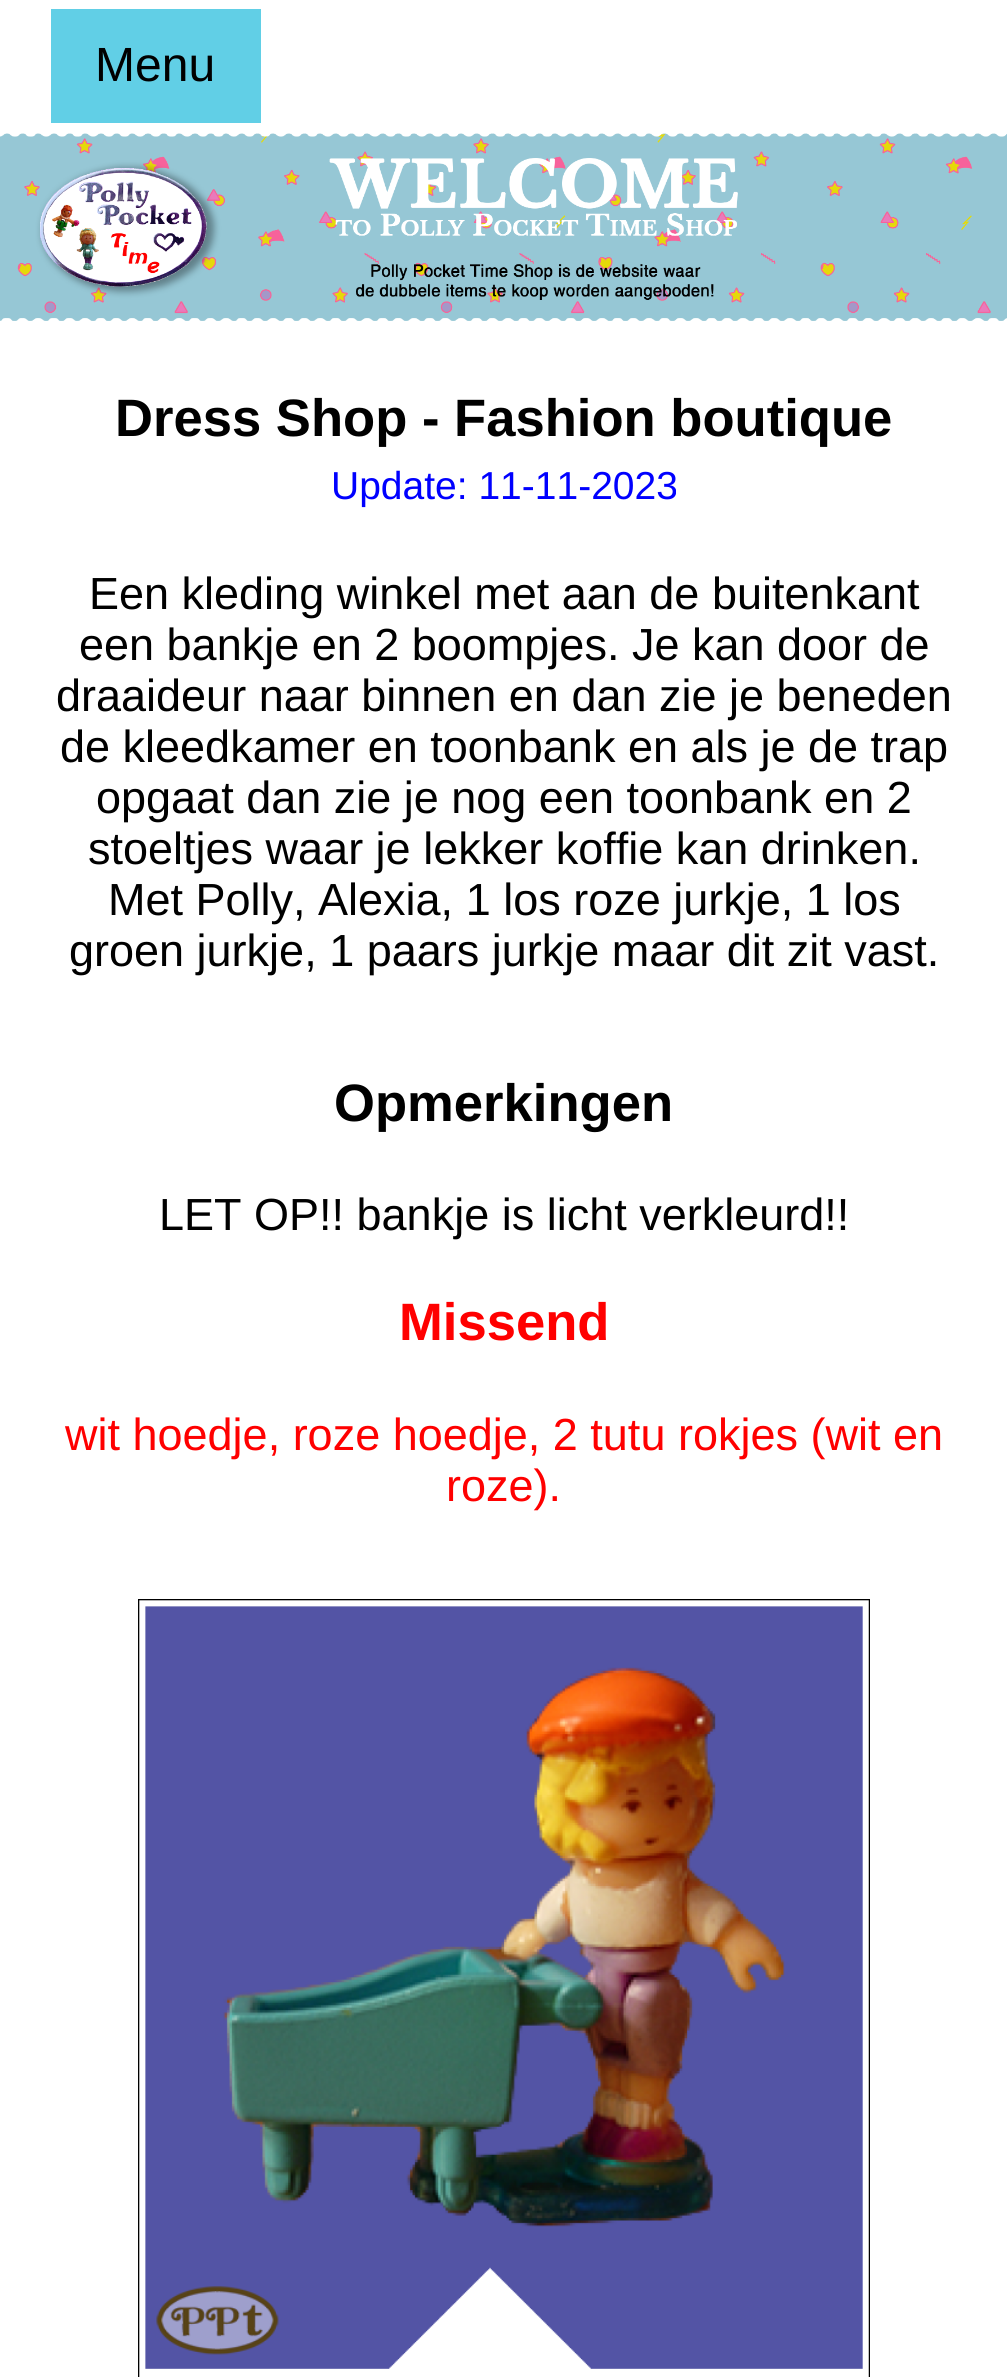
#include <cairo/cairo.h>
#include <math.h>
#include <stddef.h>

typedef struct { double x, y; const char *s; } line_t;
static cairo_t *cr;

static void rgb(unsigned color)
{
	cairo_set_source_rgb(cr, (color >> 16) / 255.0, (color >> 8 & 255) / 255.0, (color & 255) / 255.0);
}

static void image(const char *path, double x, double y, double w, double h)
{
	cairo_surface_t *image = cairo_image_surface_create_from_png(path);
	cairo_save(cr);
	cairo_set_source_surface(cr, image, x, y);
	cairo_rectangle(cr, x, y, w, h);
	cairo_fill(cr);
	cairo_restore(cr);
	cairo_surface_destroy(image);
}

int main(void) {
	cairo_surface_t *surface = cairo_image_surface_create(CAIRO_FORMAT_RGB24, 1007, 2377);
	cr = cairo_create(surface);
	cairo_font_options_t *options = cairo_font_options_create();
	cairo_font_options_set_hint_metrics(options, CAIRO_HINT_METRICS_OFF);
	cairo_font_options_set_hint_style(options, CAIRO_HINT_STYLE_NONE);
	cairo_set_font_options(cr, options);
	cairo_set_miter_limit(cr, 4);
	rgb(0xffffff);
	cairo_paint(cr);
	rgb(0x61cfe6);
	cairo_rectangle(cr, 51, 9, 210, 114);
	cairo_fill(cr);
	image("img/1.png", 0, 133, 1007, 188);
	image("img/2.png", 138, 1599, 732, 778);
	cairo_select_font_face(cr, "Liberation Sans", CAIRO_FONT_SLANT_NORMAL, CAIRO_FONT_WEIGHT_NORMAL);
	cairo_set_font_size(cr, 48);
	rgb(0x000000);
	cairo_move_to(cr, 95, 81);
	cairo_show_text(cr, "Menu");
	cairo_select_font_face(cr, "Liberation Sans", CAIRO_FONT_SLANT_NORMAL, CAIRO_FONT_WEIGHT_BOLD);
	cairo_set_font_size(cr, 52.6);
	cairo_move_to(cr, 115, 436);
	cairo_show_text(cr, "Dress Shop - Fashion boutique");
	cairo_select_font_face(cr, "Liberation Sans", CAIRO_FONT_SLANT_NORMAL, CAIRO_FONT_WEIGHT_NORMAL);
	cairo_set_font_size(cr, 39);
	rgb(0x0000ff);
	cairo_move_to(cr, 331, 499);
	cairo_show_text(cr, "Update: 11-11-2023");
	cairo_set_font_size(cr, 45);
	rgb(0x000000);
	{
		static const line_t items[] = {
			{89, 609, "Een kleding winkel met aan de buitenkant"},
			{79, 660, "een bankje en 2 boompjes. Je kan door de"},
			{56, 711, "draaideur naar binnen en dan zie je beneden"},
			{60, 762, "de kleedkamer en toonbank en als je de trap"},
			{96, 813, "opgaat dan zie je nog een toonbank en 2"},
			{88, 864, "stoeltjes waar je lekker koffie kan drinken."},
			{108, 915, "Met Polly, Alexia, 1 los roze jurkje, 1 los"},
			{69, 966, "groen jurkje, 1 paars jurkje maar dit zit vast."},
		};
		for (size_t i = 0; i < sizeof items / sizeof *items; i++) {
			cairo_move_to(cr, items[i].x, items[i].y);
			cairo_show_text(cr, items[i].s);
		}
	}
	cairo_select_font_face(cr, "Liberation Sans", CAIRO_FONT_SLANT_NORMAL, CAIRO_FONT_WEIGHT_BOLD);
	cairo_set_font_size(cr, 52.6);
	cairo_move_to(cr, 334, 1121);
	cairo_show_text(cr, "Opmerkingen");
	cairo_select_font_face(cr, "Liberation Sans", CAIRO_FONT_SLANT_NORMAL, CAIRO_FONT_WEIGHT_NORMAL);
	cairo_set_font_size(cr, 45);
	cairo_move_to(cr, 159, 1230);
	cairo_show_text(cr, "LET OP!! bankje is licht verkleurd!!");
	cairo_select_font_face(cr, "Liberation Sans", CAIRO_FONT_SLANT_NORMAL, CAIRO_FONT_WEIGHT_BOLD);
	cairo_set_font_size(cr, 52.6);
	rgb(0xff0000);
	cairo_move_to(cr, 399, 1340);
	cairo_show_text(cr, "Missend");
	cairo_select_font_face(cr, "Liberation Sans", CAIRO_FONT_SLANT_NORMAL, CAIRO_FONT_WEIGHT_NORMAL);
	cairo_set_font_size(cr, 45);
	cairo_move_to(cr, 65, 1450);
	cairo_show_text(cr, "wit hoedje, roze hoedje, 2 tutu rokjes (wit en");
	cairo_move_to(cr, 446, 1501);
	cairo_show_text(cr, "roze).");
	cairo_surface_write_to_png(surface, "page.png");
	cairo_font_options_destroy(options);
	cairo_destroy(cr);
	cairo_surface_destroy(surface);
	return 0;
}
